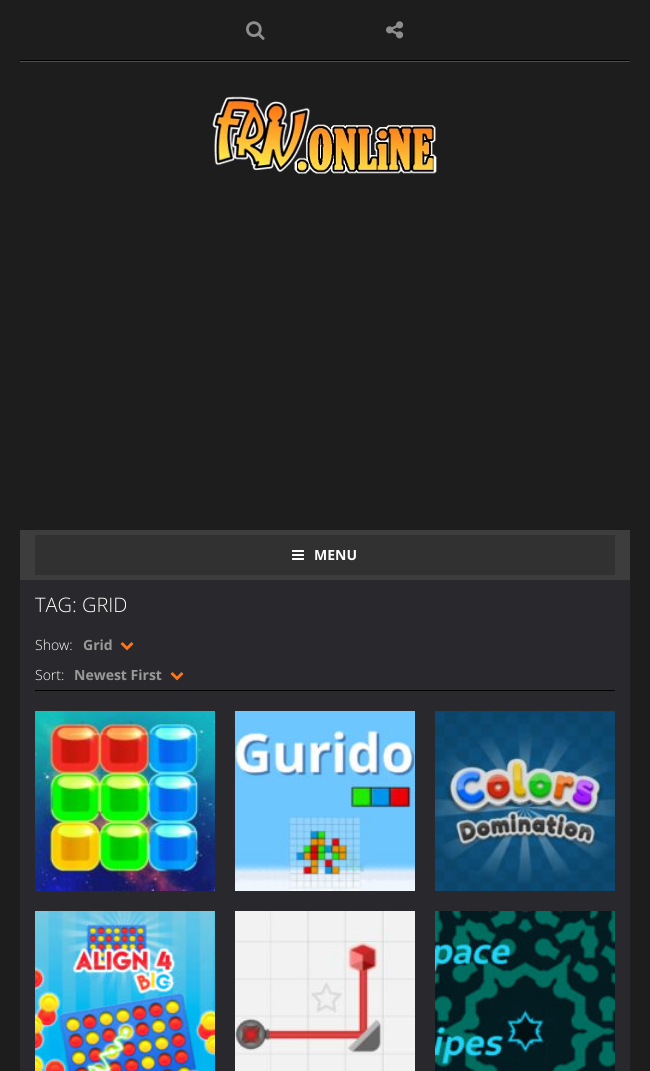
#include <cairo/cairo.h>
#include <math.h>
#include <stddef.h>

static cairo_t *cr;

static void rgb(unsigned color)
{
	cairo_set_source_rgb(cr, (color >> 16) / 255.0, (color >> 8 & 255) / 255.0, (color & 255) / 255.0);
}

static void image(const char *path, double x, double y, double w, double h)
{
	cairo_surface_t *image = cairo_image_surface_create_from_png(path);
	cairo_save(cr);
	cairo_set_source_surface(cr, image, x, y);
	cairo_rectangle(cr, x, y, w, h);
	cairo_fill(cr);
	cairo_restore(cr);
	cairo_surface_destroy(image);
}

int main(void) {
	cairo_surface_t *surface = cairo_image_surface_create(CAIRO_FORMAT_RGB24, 650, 1071);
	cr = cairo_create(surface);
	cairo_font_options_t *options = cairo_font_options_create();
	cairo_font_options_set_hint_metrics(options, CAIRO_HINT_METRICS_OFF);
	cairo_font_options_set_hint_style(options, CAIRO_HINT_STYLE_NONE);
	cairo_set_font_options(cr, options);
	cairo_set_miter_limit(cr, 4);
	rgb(0x1d1d1d);
	cairo_paint(cr);
	rgb(0x000000);
	cairo_rectangle(cr, 20, 60, 610, 1);
	cairo_fill(cr);
	image("img/1.png", 246, 21, 19, 19);
	image("img/2.png", 386, 21, 18, 18);
	rgb(0x4d4d4d);
	cairo_rectangle(cr, 20, 61, 610, 1);
	cairo_fill(cr);
	image("img/3.png", 212, 96, 225, 78);
	rgb(0x3d3d3d);
	cairo_rectangle(cr, 20, 530, 610, 50);
	cairo_fill(cr);
	rgb(0x313131);
	cairo_rectangle(cr, 35, 535, 580, 40);
	cairo_fill(cr);
	image("img/4.png", 292, 550, 12, 10);
	rgb(0x29292d);
	cairo_rectangle(cr, 20, 580, 610, 491);
	cairo_fill(cr);
	rgb(0x000000);
	cairo_rectangle(cr, 35, 690, 580, 1);
	cairo_fill(cr);
	image("img/5.png", 120, 642, 14, 9);
	image("img/5.png", 170, 672, 14, 9);
	image("img/6.png", 35, 711, 180, 180);
	image("img/7.png", 235, 711, 180, 180);
	image("img/8.png", 435, 711, 180, 180);
	image("img/9.png", 35, 911, 180, 160);
	image("img/10.png", 235, 911, 180, 160);
	image("img/11.png", 435, 911, 180, 160);
	cairo_select_font_face(cr, "Open Sans", CAIRO_FONT_SLANT_NORMAL, CAIRO_FONT_WEIGHT_BOLD);
	cairo_set_font_size(cr, 14);
	rgb(0xffffff);
	cairo_move_to(cr, 314, 560);
	cairo_show_text(cr, "MENU");
	cairo_select_font_face(cr, "Open Sans Light", CAIRO_FONT_SLANT_NORMAL, CAIRO_FONT_WEIGHT_NORMAL);
	cairo_set_font_size(cr, 20);
	cairo_move_to(cr, 35, 612);
	cairo_show_text(cr, "TAG: GRID");
	cairo_set_font_size(cr, 14);
	cairo_move_to(cr, 35, 650);
	cairo_show_text(cr, "Show:");
	cairo_select_font_face(cr, "Open Sans", CAIRO_FONT_SLANT_NORMAL, CAIRO_FONT_WEIGHT_BOLD);
	rgb(0x999999);
	cairo_move_to(cr, 83, 650);
	cairo_show_text(cr, "Grid");
	cairo_select_font_face(cr, "Open Sans Light", CAIRO_FONT_SLANT_NORMAL, CAIRO_FONT_WEIGHT_NORMAL);
	rgb(0xffffff);
	cairo_move_to(cr, 35, 680);
	cairo_show_text(cr, "Sort:");
	cairo_select_font_face(cr, "Open Sans", CAIRO_FONT_SLANT_NORMAL, CAIRO_FONT_WEIGHT_BOLD);
	rgb(0x999999);
	cairo_move_to(cr, 74, 680);
	cairo_show_text(cr, "Newest First");
	cairo_surface_write_to_png(surface, "page.png");
	cairo_font_options_destroy(options);
	cairo_destroy(cr);
	cairo_surface_destroy(surface);
	return 0;
}
